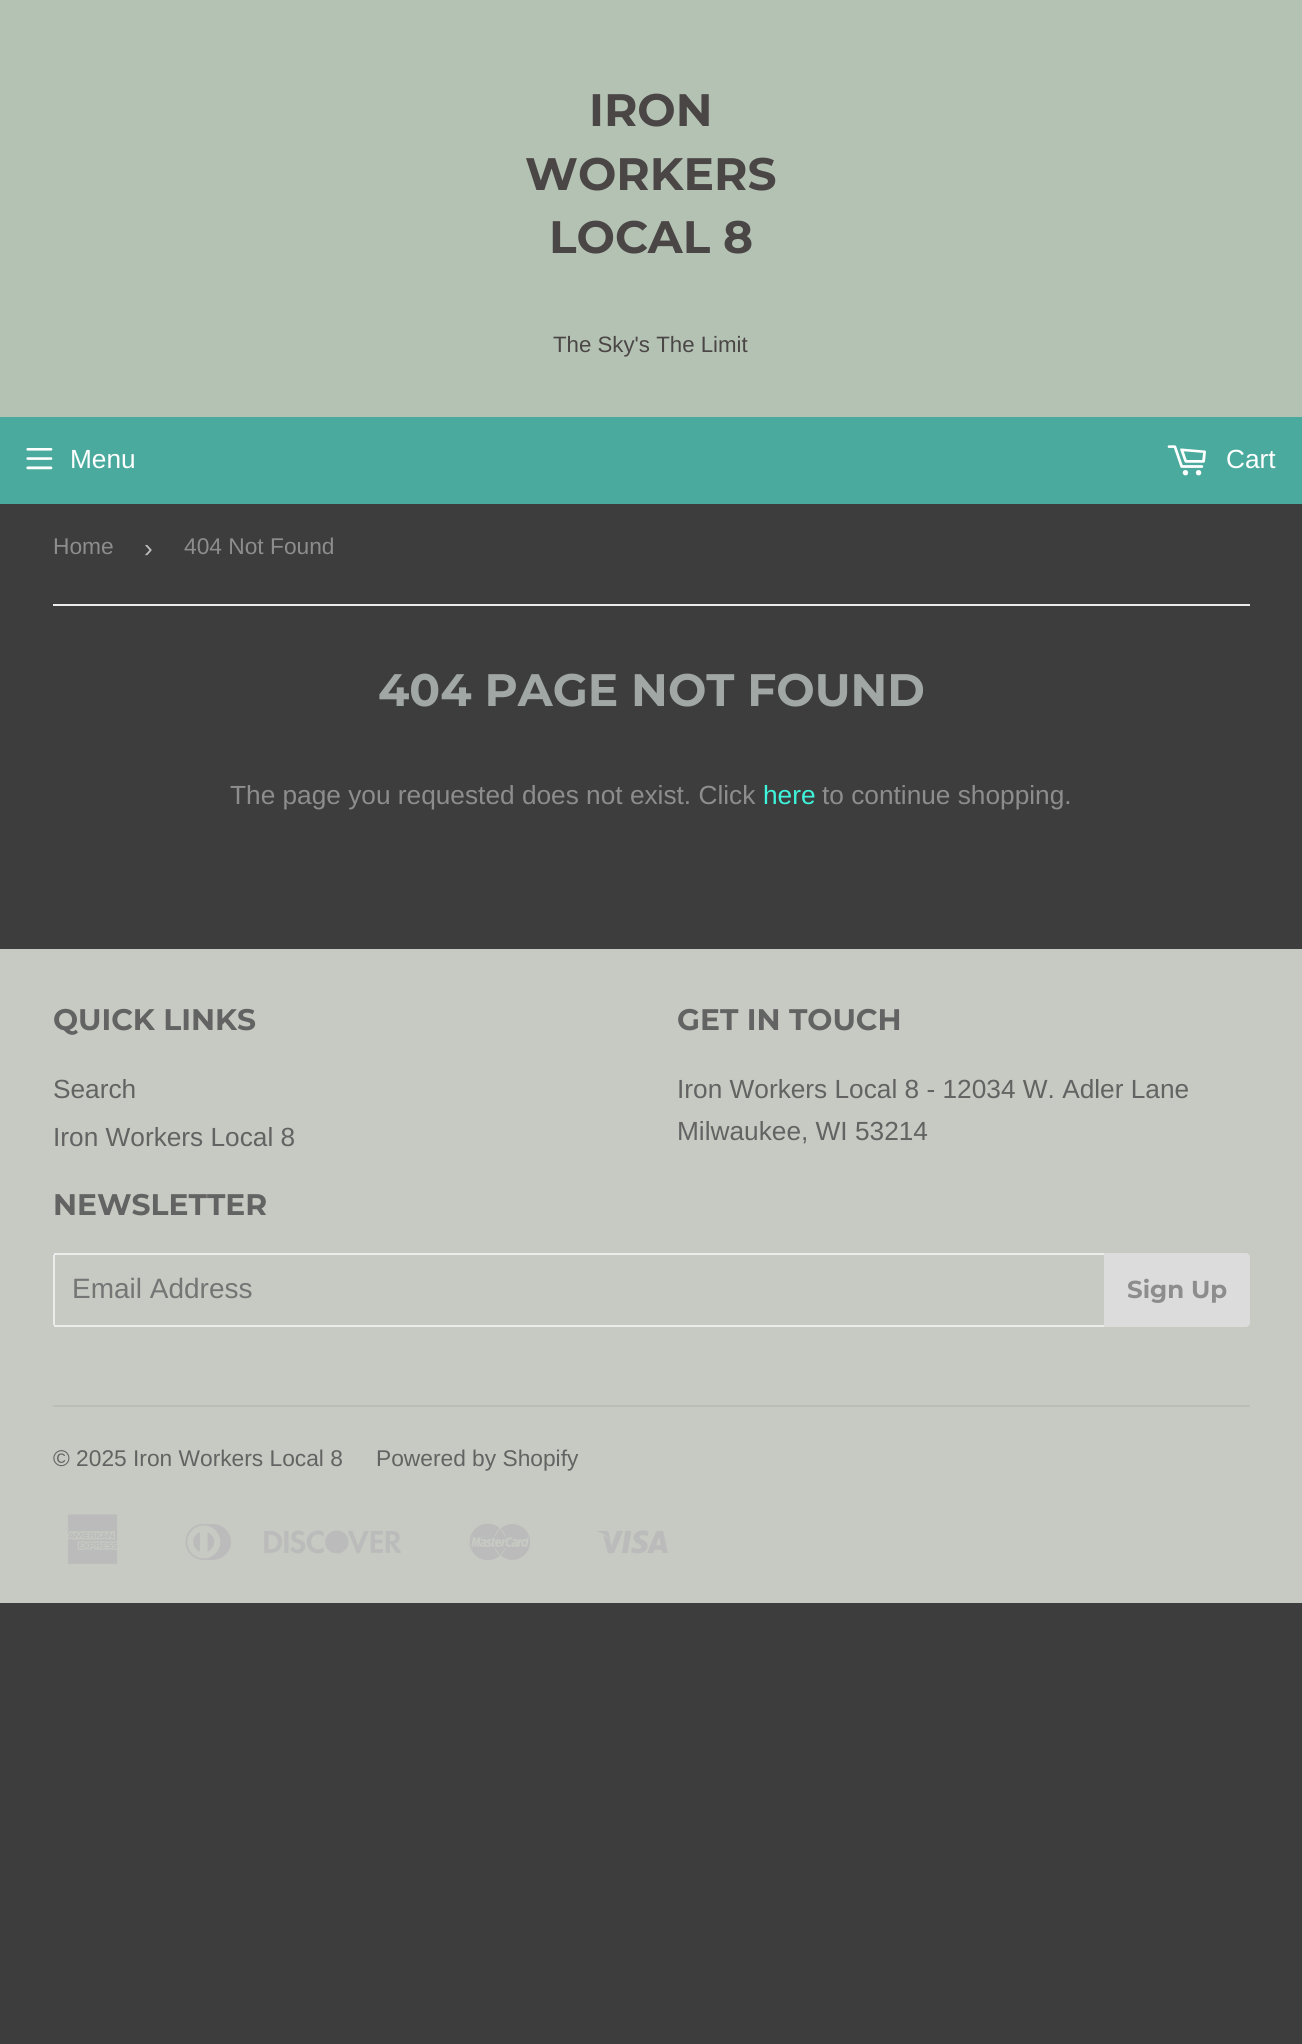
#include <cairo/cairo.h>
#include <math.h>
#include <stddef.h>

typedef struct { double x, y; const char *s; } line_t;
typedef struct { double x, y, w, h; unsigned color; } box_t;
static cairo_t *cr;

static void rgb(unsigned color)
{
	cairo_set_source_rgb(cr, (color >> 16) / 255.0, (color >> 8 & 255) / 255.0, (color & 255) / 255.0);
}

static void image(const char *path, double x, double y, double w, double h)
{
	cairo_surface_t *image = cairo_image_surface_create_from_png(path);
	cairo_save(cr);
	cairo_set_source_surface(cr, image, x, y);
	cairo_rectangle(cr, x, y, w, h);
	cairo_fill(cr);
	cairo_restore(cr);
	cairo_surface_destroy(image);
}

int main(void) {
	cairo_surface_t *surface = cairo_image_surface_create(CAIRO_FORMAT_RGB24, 1302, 2044);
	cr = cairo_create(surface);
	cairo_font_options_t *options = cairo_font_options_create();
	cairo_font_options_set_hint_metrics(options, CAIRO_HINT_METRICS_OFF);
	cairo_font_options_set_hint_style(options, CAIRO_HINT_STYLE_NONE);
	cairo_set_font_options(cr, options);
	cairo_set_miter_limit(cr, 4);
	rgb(0x3d3d3d);
	cairo_paint(cr);
	rgb(0xb4c2b3);
	cairo_rectangle(cr, 0, 0, 1302, 417);
	cairo_fill(cr);
	rgb(0x49aa9d);
	cairo_rectangle(cr, 0, 417, 1302, 87);
	cairo_fill(cr);
	image("img/1.png", 26, 448, 27, 22);
	image("img/2.png", 1167, 445, 39, 31);
	{
		static const box_t items[] = {
			{53, 604, 1197, 2, 0xececec},
			{0, 949, 1302, 654, 0xc7cac2},
			{54, 1253, 1050, 2, 0xececec},
			{54, 1325, 1050, 2, 0xececec},
			{53, 1255, 2, 70, 0xececec},
		};
		for (size_t i = 0; i < sizeof items / sizeof *items; i++) {
			rgb(items[i].color);
			cairo_rectangle(cr, items[i].x, items[i].y, items[i].w, items[i].h);
			cairo_fill(cr);
		}
	}
	rgb(0xdcdcdc);
	cairo_new_path(cr);
	cairo_move_to(cr, 1104, 1253);
	cairo_line_to(cr, 1246, 1253);
	cairo_curve_to(cr, 1248, 1253, 1250, 1255, 1250, 1257);
	cairo_line_to(cr, 1250, 1323);
	cairo_curve_to(cr, 1250, 1325, 1248, 1327, 1246, 1327);
	cairo_line_to(cr, 1104, 1327);
	cairo_close_path(cr);
	cairo_fill(cr);
	rgb(0xbabeb4);
	cairo_rectangle(cr, 53, 1405, 1197, 2);
	cairo_fill(cr);
	image("img/3.png", 68, 1514, 50, 50);
	image("img/4.png", 185, 1524, 46, 36);
	image("img/5.png", 264, 1530, 137, 24);
	image("img/6.png", 469, 1523, 61, 37);
	image("img/7.png", 597, 1530, 71, 24);
	cairo_select_font_face(cr, "Montserrat Thin", CAIRO_FONT_SLANT_NORMAL, CAIRO_FONT_WEIGHT_NORMAL);
	cairo_set_font_size(cr, 45.5);
	rgb(0x4b4646);
	{
		static const line_t items[] = {
			{589, 126, "IRON"},
			{525, 190, "WORKERS"},
			{549, 253, "LOCAL 8"},
		};
		for (size_t i = 0; i < sizeof items / sizeof *items; i++) {
			cairo_move_to(cr, items[i].x, items[i].y);
			cairo_show_text(cr, items[i].s);
		}
	}
	cairo_select_font_face(cr, "Liberation Sans", CAIRO_FONT_SLANT_NORMAL, CAIRO_FONT_WEIGHT_NORMAL);
	cairo_set_font_size(cr, 22.25);
	cairo_move_to(cr, 553, 352);
	cairo_show_text(cr, "The Sky's The Limit");
	cairo_set_font_size(cr, 26.25);
	rgb(0xffffff);
	cairo_move_to(cr, 70, 468);
	cairo_show_text(cr, "Menu");
	cairo_move_to(cr, 1226, 468);
	cairo_show_text(cr, "Cart");
	cairo_set_font_size(cr, 22.75);
	rgb(0x8d8d8d);
	cairo_move_to(cr, 53, 554);
	cairo_show_text(cr, "Home");
	cairo_set_font_size(cr, 26.25);
	rgb(0xbbbbbb);
	cairo_move_to(cr, 144, 557);
	cairo_show_text(cr, "›");
	cairo_set_font_size(cr, 22.75);
	rgb(0x8d8d8d);
	cairo_move_to(cr, 184, 554);
	cairo_show_text(cr, "404 Not Found");
	cairo_select_font_face(cr, "Montserrat Thin", CAIRO_FONT_SLANT_NORMAL, CAIRO_FONT_WEIGHT_NORMAL);
	cairo_set_font_size(cr, 45.5);
	rgb(0xa0a7a5);
	cairo_move_to(cr, 378, 706);
	cairo_show_text(cr, "404 PAGE NOT FOUND");
	cairo_select_font_face(cr, "Liberation Sans", CAIRO_FONT_SLANT_NORMAL, CAIRO_FONT_WEIGHT_NORMAL);
	cairo_set_font_size(cr, 26.25);
	rgb(0x8d8d8d);
	cairo_move_to(cr, 230, 804);
	cairo_show_text(cr, "The page you requested does not exist. Click");
	rgb(0x3ef5dc);
	cairo_move_to(cr, 763, 804);
	cairo_show_text(cr, "here");
	rgb(0x8d8d8d);
	cairo_move_to(cr, 822, 804);
	cairo_show_text(cr, "to continue shopping.");
	cairo_select_font_face(cr, "Montserrat Thin", CAIRO_FONT_SLANT_NORMAL, CAIRO_FONT_WEIGHT_NORMAL);
	cairo_set_font_size(cr, 29.75);
	rgb(0x636363);
	cairo_move_to(cr, 53, 1030);
	cairo_show_text(cr, "QUICK LINKS");
	cairo_select_font_face(cr, "Liberation Sans", CAIRO_FONT_SLANT_NORMAL, CAIRO_FONT_WEIGHT_NORMAL);
	cairo_set_font_size(cr, 26.25);
	cairo_move_to(cr, 53, 1098);
	cairo_show_text(cr, "Search");
	cairo_move_to(cr, 53, 1146);
	cairo_show_text(cr, "Iron Workers Local 8");
	cairo_select_font_face(cr, "Montserrat Thin", CAIRO_FONT_SLANT_NORMAL, CAIRO_FONT_WEIGHT_NORMAL);
	cairo_set_font_size(cr, 29.75);
	cairo_move_to(cr, 677, 1030);
	cairo_show_text(cr, "GET IN TOUCH");
	cairo_select_font_face(cr, "Liberation Sans", CAIRO_FONT_SLANT_NORMAL, CAIRO_FONT_WEIGHT_NORMAL);
	cairo_set_font_size(cr, 26.25);
	cairo_move_to(cr, 677, 1098);
	cairo_show_text(cr, "Iron Workers Local 8 - 12034 W. Adler Lane");
	cairo_move_to(cr, 677, 1140);
	cairo_show_text(cr, "Milwaukee, WI 53214");
	cairo_select_font_face(cr, "Montserrat Thin", CAIRO_FONT_SLANT_NORMAL, CAIRO_FONT_WEIGHT_NORMAL);
	cairo_set_font_size(cr, 29.75);
	cairo_move_to(cr, 53, 1215);
	cairo_show_text(cr, "NEWSLETTER");
	cairo_select_font_face(cr, "Liberation Sans", CAIRO_FONT_SLANT_NORMAL, CAIRO_FONT_WEIGHT_NORMAL);
	cairo_set_font_size(cr, 28);
	rgb(0x757575);
	cairo_move_to(cr, 72, 1298);
	cairo_show_text(cr, "Email Address");
	cairo_select_font_face(cr, "Montserrat Thin", CAIRO_FONT_SLANT_NORMAL, CAIRO_FONT_WEIGHT_NORMAL);
	cairo_set_font_size(cr, 24.5);
	rgb(0x8d8d8d);
	cairo_move_to(cr, 1127, 1298);
	cairo_show_text(cr, "Sign Up");
	cairo_select_font_face(cr, "Liberation Sans", CAIRO_FONT_SLANT_NORMAL, CAIRO_FONT_WEIGHT_NORMAL);
	cairo_set_font_size(cr, 22.75);
	rgb(0x636363);
	cairo_move_to(cr, 53, 1466);
	cairo_show_text(cr, "© 2025 Iron Workers Local 8");
	cairo_move_to(cr, 376, 1466);
	cairo_show_text(cr, "Powered by Shopify");
	cairo_surface_write_to_png(surface, "page.png");
	cairo_font_options_destroy(options);
	cairo_destroy(cr);
	cairo_surface_destroy(surface);
	return 0;
}
